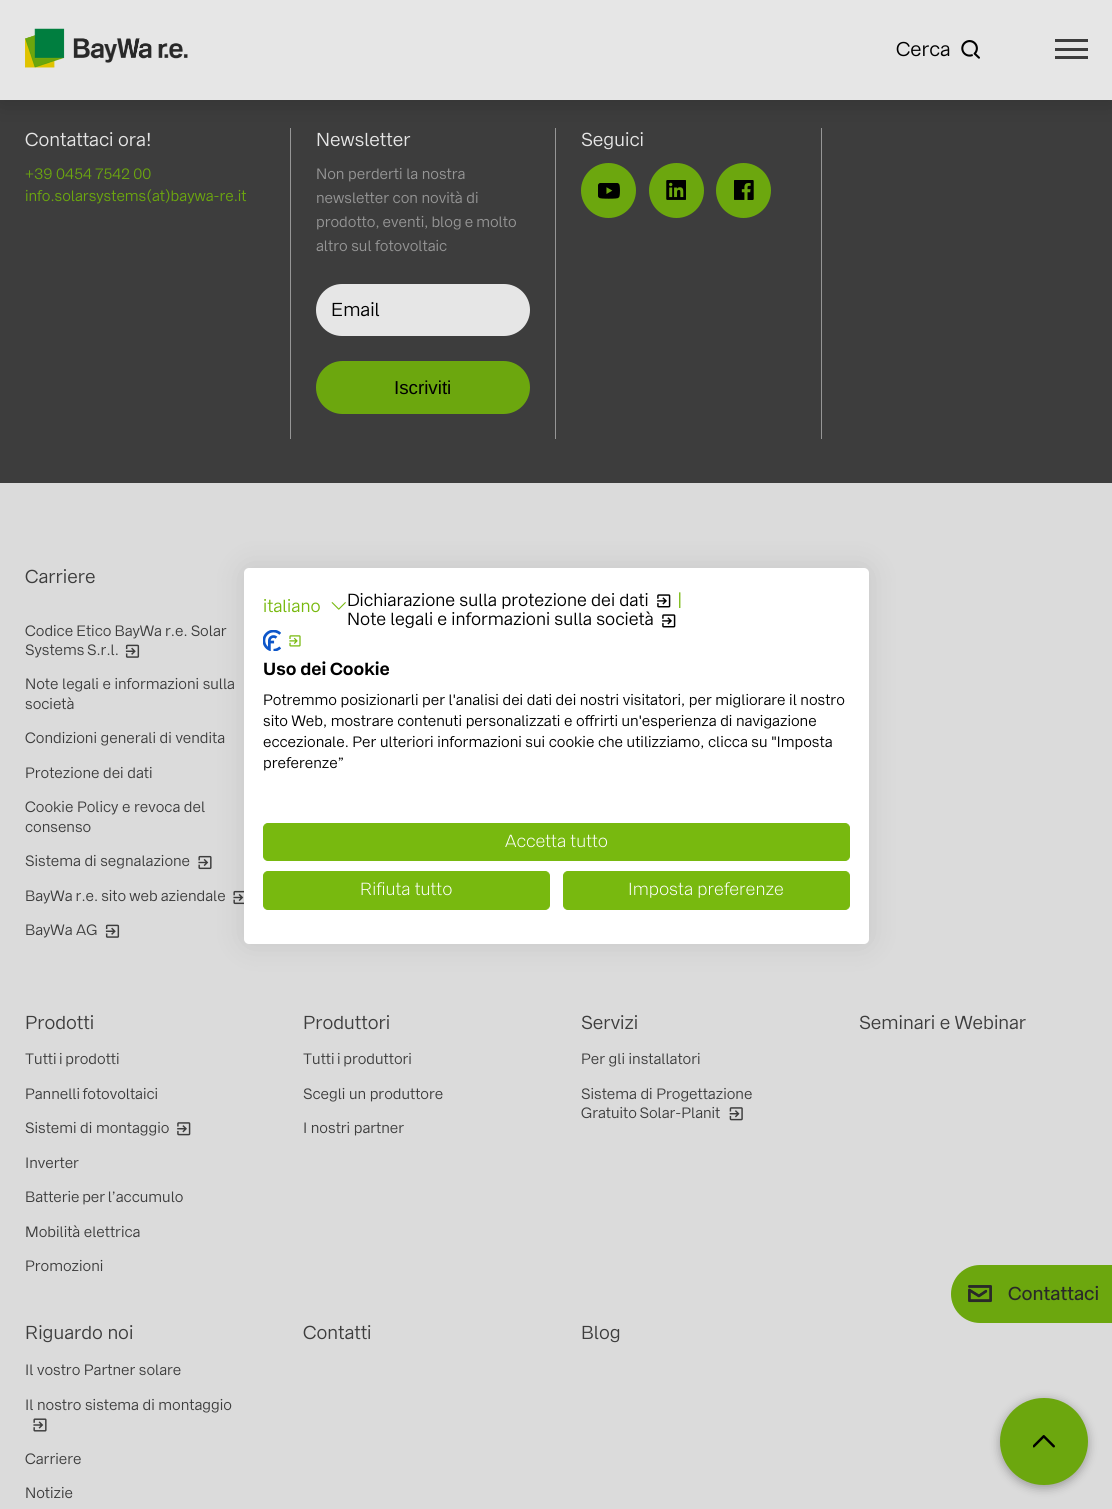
#include <cairo/cairo.h>
#include <math.h>
#include <stddef.h>

typedef struct { double x, y; const char *s; } line_t;
typedef struct { double x, y, w, h; unsigned color; } box_t;
static cairo_t *cr;

static void rgb(unsigned color)
{
	cairo_set_source_rgb(cr, (color >> 16) / 255.0, (color >> 8 & 255) / 255.0, (color & 255) / 255.0);
}

static void tracked(double x, double y, const char *s, double letter, double word)
{
	cairo_move_to(cr, x, y);
	while (*s) {
		char ch[5] = {0};
		int n = 0;
		do ch[n++] = *s++; while ((*s & 0xC0) == 0x80);
		cairo_show_text(cr, ch);
		cairo_rel_move_to(cr, letter + word * (*ch == ' '), 0);
	}
}

static void rrect(double x, double y, double w, double h, double r)
{
	cairo_new_sub_path(cr);
	cairo_arc(cr, x + w - r, y + h - r, r, 0, M_PI / 2);
	cairo_arc(cr, x + r, y + h - r, r, M_PI / 2, M_PI);
	cairo_arc(cr, x + r, y + r, r, M_PI, 1.5 * M_PI);
	cairo_arc(cr, x + w - r, y + r, r, 1.5 * M_PI, 2 * M_PI);
	cairo_close_path(cr);
}

static void soft_shadow(double x, double y, double w, double h, double r, double blur, double alpha)
{
	cairo_push_group_with_content(cr, CAIRO_CONTENT_ALPHA);
	cairo_set_operator(cr, CAIRO_OPERATOR_SOURCE);
	for (int i = 15; i >= -15 && fmin(w, h) + blur * i / 3 > 0; i -= 2) {
		double e = blur * i / 6;
		cairo_set_source_rgba(cr, 0, 0, 0, alpha * erfc((i - 1) / 8.5) / 2);
		rrect(x - e, y - e, w + 2 * e, h + 2 * e, fmax(0, fmin(r + e + blur * .6, fmin(w, h) / 2 + e)));
		cairo_fill(cr);
	}
	cairo_pattern_t *soft = cairo_pop_group(cr);
	cairo_mask(cr, soft);
	cairo_pattern_destroy(soft);
}

static void image(const char *path, double x, double y, double w, double h)
{
	cairo_surface_t *image = cairo_image_surface_create_from_png(path);
	cairo_save(cr);
	cairo_set_source_surface(cr, image, x, y);
	cairo_rectangle(cr, x, y, w, h);
	cairo_fill(cr);
	cairo_restore(cr);
	cairo_surface_destroy(image);
}

int main(void) {
	cairo_surface_t *surface = cairo_image_surface_create(CAIRO_FORMAT_RGB24, 1112, 1509);
	cr = cairo_create(surface);
	cairo_font_options_t *options = cairo_font_options_create();
	cairo_font_options_set_hint_metrics(options, CAIRO_HINT_METRICS_OFF);
	cairo_font_options_set_hint_style(options, CAIRO_HINT_STYLE_NONE);
	cairo_set_font_options(cr, options);
	cairo_set_miter_limit(cr, 4);
	rgb(0xdbdbdb);
	cairo_paint(cr);
	{
		static const box_t items[] = {
			{0, 100, 1112, 383, 0x3d3d3d},
			{290, 128, 1, 311, 0x969696},
			{555, 128, 1, 311, 0x969696},
			{821, 128, 1, 311, 0x969696},
		};
		for (size_t i = 0; i < sizeof items / sizeof *items; i++) {
			rgb(items[i].color);
			cairo_rectangle(cr, items[i].x, items[i].y, items[i].w, items[i].h);
			cairo_fill(cr);
		}
	}
	rgb(0x000000);
	soft_shadow(0, 4, 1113, 100, 0, 12.5, 0.16);
	rgb(0xe6e6e6);
	cairo_rectangle(cr, 0, 0, 1112, 100);
	cairo_fill(cr);
	image("img/1.png", 25, 28, 163, 40);
	image("img/2.png", 961, 40, 19, 19);
	{
		static const box_t items[] = {
			{1055, 39, 33, 3, 0x3d3d3d},
			{1055, 48, 33, 3, 0x3d3d3d},
			{1055, 56, 33, 3, 0x3d3d3d},
		};
		for (size_t i = 0; i < sizeof items / sizeof *items; i++) {
			rgb(items[i].color);
			cairo_rectangle(cr, items[i].x, items[i].y, items[i].w, items[i].h);
			cairo_fill(cr);
		}
	}
	rgb(0xe6e6e6);
	rrect(316, 284, 214, 52, 26);
	cairo_fill(cr);
	rgb(0x6ca70e);
	rrect(316, 361, 214, 53, 26.5);
	cairo_fill(cr);
	cairo_arc(cr, 608.5, 190.5, 27.5, 0, 2 * M_PI);
	cairo_fill(cr);
	image("img/3.png", 598, 183, 22, 16);
	cairo_arc(cr, 676.5, 190.5, 27.5, 0, 2 * M_PI);
	cairo_fill(cr);
	image("img/4.png", 666, 180, 20, 20);
	cairo_arc(cr, 743.5, 190.5, 27.5, 0, 2 * M_PI);
	cairo_fill(cr);
	image("img/5.png", 734, 180, 20, 20);
	image("img/6.png", 125, 644, 15, 14);
	image("img/7.png", 198, 855, 14, 15);
	image("img/8.png", 233, 890, 11, 15);
	image("img/6.png", 105, 924, 15, 14);
	image("img/9.png", 177, 1122, 14, 14);
	image("img/10.png", 729, 1107, 14, 14);
	image("img/11.png", 33, 1418, 14, 14);
	rgb(0x000000);
	soft_shadow(244, 568, 625, 376, 5, 15, 0.1);
	rgb(0xffffff);
	rrect(244, 568, 625, 376, 5);
	cairo_fill(cr);
	image("img/12.png", 331, 602, 15, 8);
	image("img/13.png", 657, 594, 14, 14);
	image("img/13.png", 662, 614, 14, 14);
	image("img/14.png", 263, 630, 18, 21);
	image("img/15.png", 289, 635, 12, 12);
	rgb(0x78b90f);
	rrect(263.5, 823.5, 586, 37, 4.5);
	cairo_fill_preserve(cr);
	cairo_set_line_width(cr, 1);
	cairo_stroke(cr);
	rrect(263.5, 871.5, 286, 38, 4.5);
	cairo_fill_preserve(cr);
	cairo_stroke(cr);
	rrect(563.5, 871.5, 286, 38, 4.5);
	cairo_fill_preserve(cr);
	cairo_stroke(cr);
	rgb(0x6ca70e);
	cairo_new_path(cr);
	cairo_move_to(cr, 980, 1265);
	cairo_line_to(cr, 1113, 1265);
	cairo_line_to(cr, 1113, 1323);
	cairo_line_to(cr, 980, 1323);
	cairo_curve_to(cr, 964, 1323, 951, 1310, 951, 1294);
	cairo_curve_to(cr, 951, 1278, 964, 1265, 980, 1265);
	cairo_close_path(cr);
	cairo_fill(cr);
	image("img/16.png", 968, 1285, 24, 18);
	rgb(0x000000);
	soft_shadow(1000, 1400, 88, 88, 44, 5, 0.3);
	rgb(0x6ca70e);
	rrect(1000, 1398, 88, 87, 43.5);
	cairo_fill(cr);
	image("img/17.png", 1033, 1435, 22, 13);
	cairo_select_font_face(cr, "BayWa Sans", CAIRO_FONT_SLANT_NORMAL, CAIRO_FONT_WEIGHT_NORMAL);
	cairo_set_font_size(cr, 20);
	rgb(0x000000);
	cairo_move_to(cr, 896, 56);
	cairo_show_text(cr, "Cerca");
	cairo_set_font_size(cr, 18.75);
	rgb(0xe6e6e6);
	cairo_move_to(cr, 25, 146);
	cairo_show_text(cr, "Contattaci ora!");
	cairo_set_font_size(cr, 15);
	rgb(0x6ca70e);
	cairo_move_to(cr, 25, 179);
	cairo_show_text(cr, "+39 0454 7542 00");
	cairo_move_to(cr, 25, 201);
	cairo_show_text(cr, "info.solarsystems(at)baywa-re.it");
	cairo_set_font_size(cr, 18.75);
	rgb(0xe6e6e6);
	cairo_move_to(cr, 316, 146);
	cairo_show_text(cr, "Newsletter");
	cairo_set_font_size(cr, 15);
	rgb(0x969696);
	cairo_move_to(cr, 316, 179);
	cairo_show_text(cr, "Non perderti la nostra");
	cairo_move_to(cr, 316, 203);
	cairo_show_text(cr, "newsletter con novità di");
	tracked(316, 227, "prodotto, eventi, blog e molto", 0, -0.5);
	cairo_move_to(cr, 316, 251);
	cairo_show_text(cr, "altro sul fotovoltaic");
	cairo_set_font_size(cr, 18.75);
	rgb(0x000000);
	cairo_move_to(cr, 331, 316);
	cairo_show_text(cr, "Email");
	cairo_select_font_face(cr, "Liberation Sans", CAIRO_FONT_SLANT_NORMAL, CAIRO_FONT_WEIGHT_NORMAL);
	cairo_move_to(cr, 394, 394);
	cairo_show_text(cr, "Iscriviti");
	cairo_select_font_face(cr, "BayWa Sans", CAIRO_FONT_SLANT_NORMAL, CAIRO_FONT_WEIGHT_NORMAL);
	rgb(0xe6e6e6);
	cairo_move_to(cr, 581, 146);
	cairo_show_text(cr, "Seguici");
	rgb(0x3d3d3d);
	cairo_move_to(cr, 25, 583);
	cairo_show_text(cr, "Carriere");
	cairo_set_font_size(cr, 15);
	tracked(25, 636, "Codice Etico BayWa r.e. Solar", 0, -0.5);
	tracked(25, 655, "Systems S.r.l.", 0, -1);
	{
		static const line_t items[] = {
			{25, 689, "Note legali e informazioni sulla"},
			{25, 709, "società"},
			{25, 743, "Condizioni generali di vendita"},
			{25, 778, "Protezione dei dati"},
			{25, 812, "Cookie Policy e revoca del"},
			{25, 832, "consenso"},
			{25, 866, "Sistema di segnalazione"},
		};
		for (size_t i = 0; i < sizeof items / sizeof *items; i++) {
			cairo_move_to(cr, items[i].x, items[i].y);
			cairo_show_text(cr, items[i].s);
		}
	}
	tracked(25, 901, "BayWa r.e. sito web aziendale", 0, -0.5);
	cairo_move_to(cr, 25, 935);
	cairo_show_text(cr, "BayWa AG");
	cairo_set_font_size(cr, 18.75);
	cairo_move_to(cr, 25, 1029);
	cairo_show_text(cr, "Prodotti");
	cairo_set_font_size(cr, 15);
	tracked(25, 1064, "Tutti i prodotti", 0, -1);
	tracked(25, 1099, "Pannelli fotovoltaici", 0, -1);
	cairo_move_to(cr, 25, 1133);
	cairo_show_text(cr, "Sistemi di montaggio");
	cairo_move_to(cr, 25, 1168);
	cairo_show_text(cr, "Inverter");
	tracked(25, 1202, "Batterie per l’accumulo", 0, -1);
	cairo_move_to(cr, 25, 1237);
	cairo_show_text(cr, "Mobilità elettrica");
	cairo_move_to(cr, 25, 1271);
	cairo_show_text(cr, "Promozioni");
	cairo_set_font_size(cr, 18.75);
	cairo_move_to(cr, 303, 1029);
	cairo_show_text(cr, "Produttori");
	cairo_set_font_size(cr, 15);
	tracked(303, 1064, "Tutti i produttori", 0, -1);
	cairo_move_to(cr, 303, 1099);
	cairo_show_text(cr, "Scegli un produttore");
	cairo_move_to(cr, 303, 1133);
	cairo_show_text(cr, "I nostri partner");
	cairo_set_font_size(cr, 18.75);
	cairo_move_to(cr, 581, 1029);
	cairo_show_text(cr, "Servizi");
	cairo_set_font_size(cr, 15);
	cairo_move_to(cr, 581, 1064);
	cairo_show_text(cr, "Per gli installatori");
	cairo_move_to(cr, 581, 1099);
	cairo_show_text(cr, "Sistema di Progettazione");
	tracked(581, 1118, "Gratuito Solar-Planit", 0, -1);
	cairo_set_font_size(cr, 18.75);
	cairo_move_to(cr, 859, 1029);
	cairo_show_text(cr, "Seminari e Webinar");
	cairo_move_to(cr, 25, 1339);
	cairo_show_text(cr, "Riguardo noi");
	cairo_set_font_size(cr, 15);
	{
		static const line_t items[] = {
			{25, 1375, "Il vostro Partner solare"},
			{25, 1410, "Il nostro sistema di montaggio"},
			{25, 1464, "Carriere"},
			{25, 1498, "Notizie"},
		};
		for (size_t i = 0; i < sizeof items / sizeof *items; i++) {
			cairo_move_to(cr, items[i].x, items[i].y);
			cairo_show_text(cr, items[i].s);
		}
	}
	cairo_set_font_size(cr, 18.75);
	cairo_move_to(cr, 303, 1339);
	cairo_show_text(cr, "Contatti");
	cairo_move_to(cr, 581, 1339);
	cairo_show_text(cr, "Blog");
	cairo_set_font_size(cr, 17.5);
	rgb(0x78b90f);
	cairo_move_to(cr, 263, 612);
	cairo_show_text(cr, "italiano");
	rgb(0x000000);
	cairo_move_to(cr, 347, 606);
	cairo_show_text(cr, "Dichiarazione sulla protezione dei dati");
	rgb(0x78b90f);
	cairo_move_to(cr, 677, 606);
	cairo_show_text(cr, "|");
	rgb(0x000000);
	cairo_move_to(cr, 347, 625);
	cairo_show_text(cr, "Note legali e informazioni sulla società");
	cairo_select_font_face(cr, "BayWa Sans", CAIRO_FONT_SLANT_NORMAL, CAIRO_FONT_WEIGHT_BOLD);
	cairo_move_to(cr, 263, 675);
	cairo_show_text(cr, "Uso dei Cookie");
	cairo_select_font_face(cr, "BayWa Sans", CAIRO_FONT_SLANT_NORMAL, CAIRO_FONT_WEIGHT_NORMAL);
	cairo_set_font_size(cr, 15);
	{
		static const line_t items[] = {
			{263, 705, "Potremmo posizionarli per l'analisi dei dati dei nostri visitatori, per migliorare il nostro"},
			{263, 726, "sito Web, mostrare contenuti personalizzati e offrirti un'esperienza di navigazione"},
			{263, 747, "eccezionale. Per ulteriori informazioni sui cookie che utilizziamo, clicca su \"Imposta"},
			{263, 768, "preferenze”"},
		};
		for (size_t i = 0; i < sizeof items / sizeof *items; i++) {
			cairo_move_to(cr, items[i].x, items[i].y);
			cairo_show_text(cr, items[i].s);
		}
	}
	cairo_select_font_face(cr, "BayWa Sans Light", CAIRO_FONT_SLANT_NORMAL, CAIRO_FONT_WEIGHT_NORMAL);
	cairo_set_font_size(cr, 17.5);
	rgb(0xffffff);
	{
		static const line_t items[] = {
			{505, 847, "Accetta tutto"},
			{360, 895, "Rifiuta tutto"},
			{628, 895, "Imposta preferenze"},
		};
		for (size_t i = 0; i < sizeof items / sizeof *items; i++) {
			cairo_move_to(cr, items[i].x, items[i].y);
			cairo_show_text(cr, items[i].s);
		}
	}
	cairo_select_font_face(cr, "BayWa Sans Medium", CAIRO_FONT_SLANT_NORMAL, CAIRO_FONT_WEIGHT_NORMAL);
	cairo_set_font_size(cr, 18.75);
	rgb(0x292929);
	cairo_move_to(cr, 1008, 1300);
	cairo_show_text(cr, "Contattaci");
	cairo_surface_write_to_png(surface, "page.png");
	cairo_font_options_destroy(options);
	cairo_destroy(cr);
	cairo_surface_destroy(surface);
	return 0;
}
